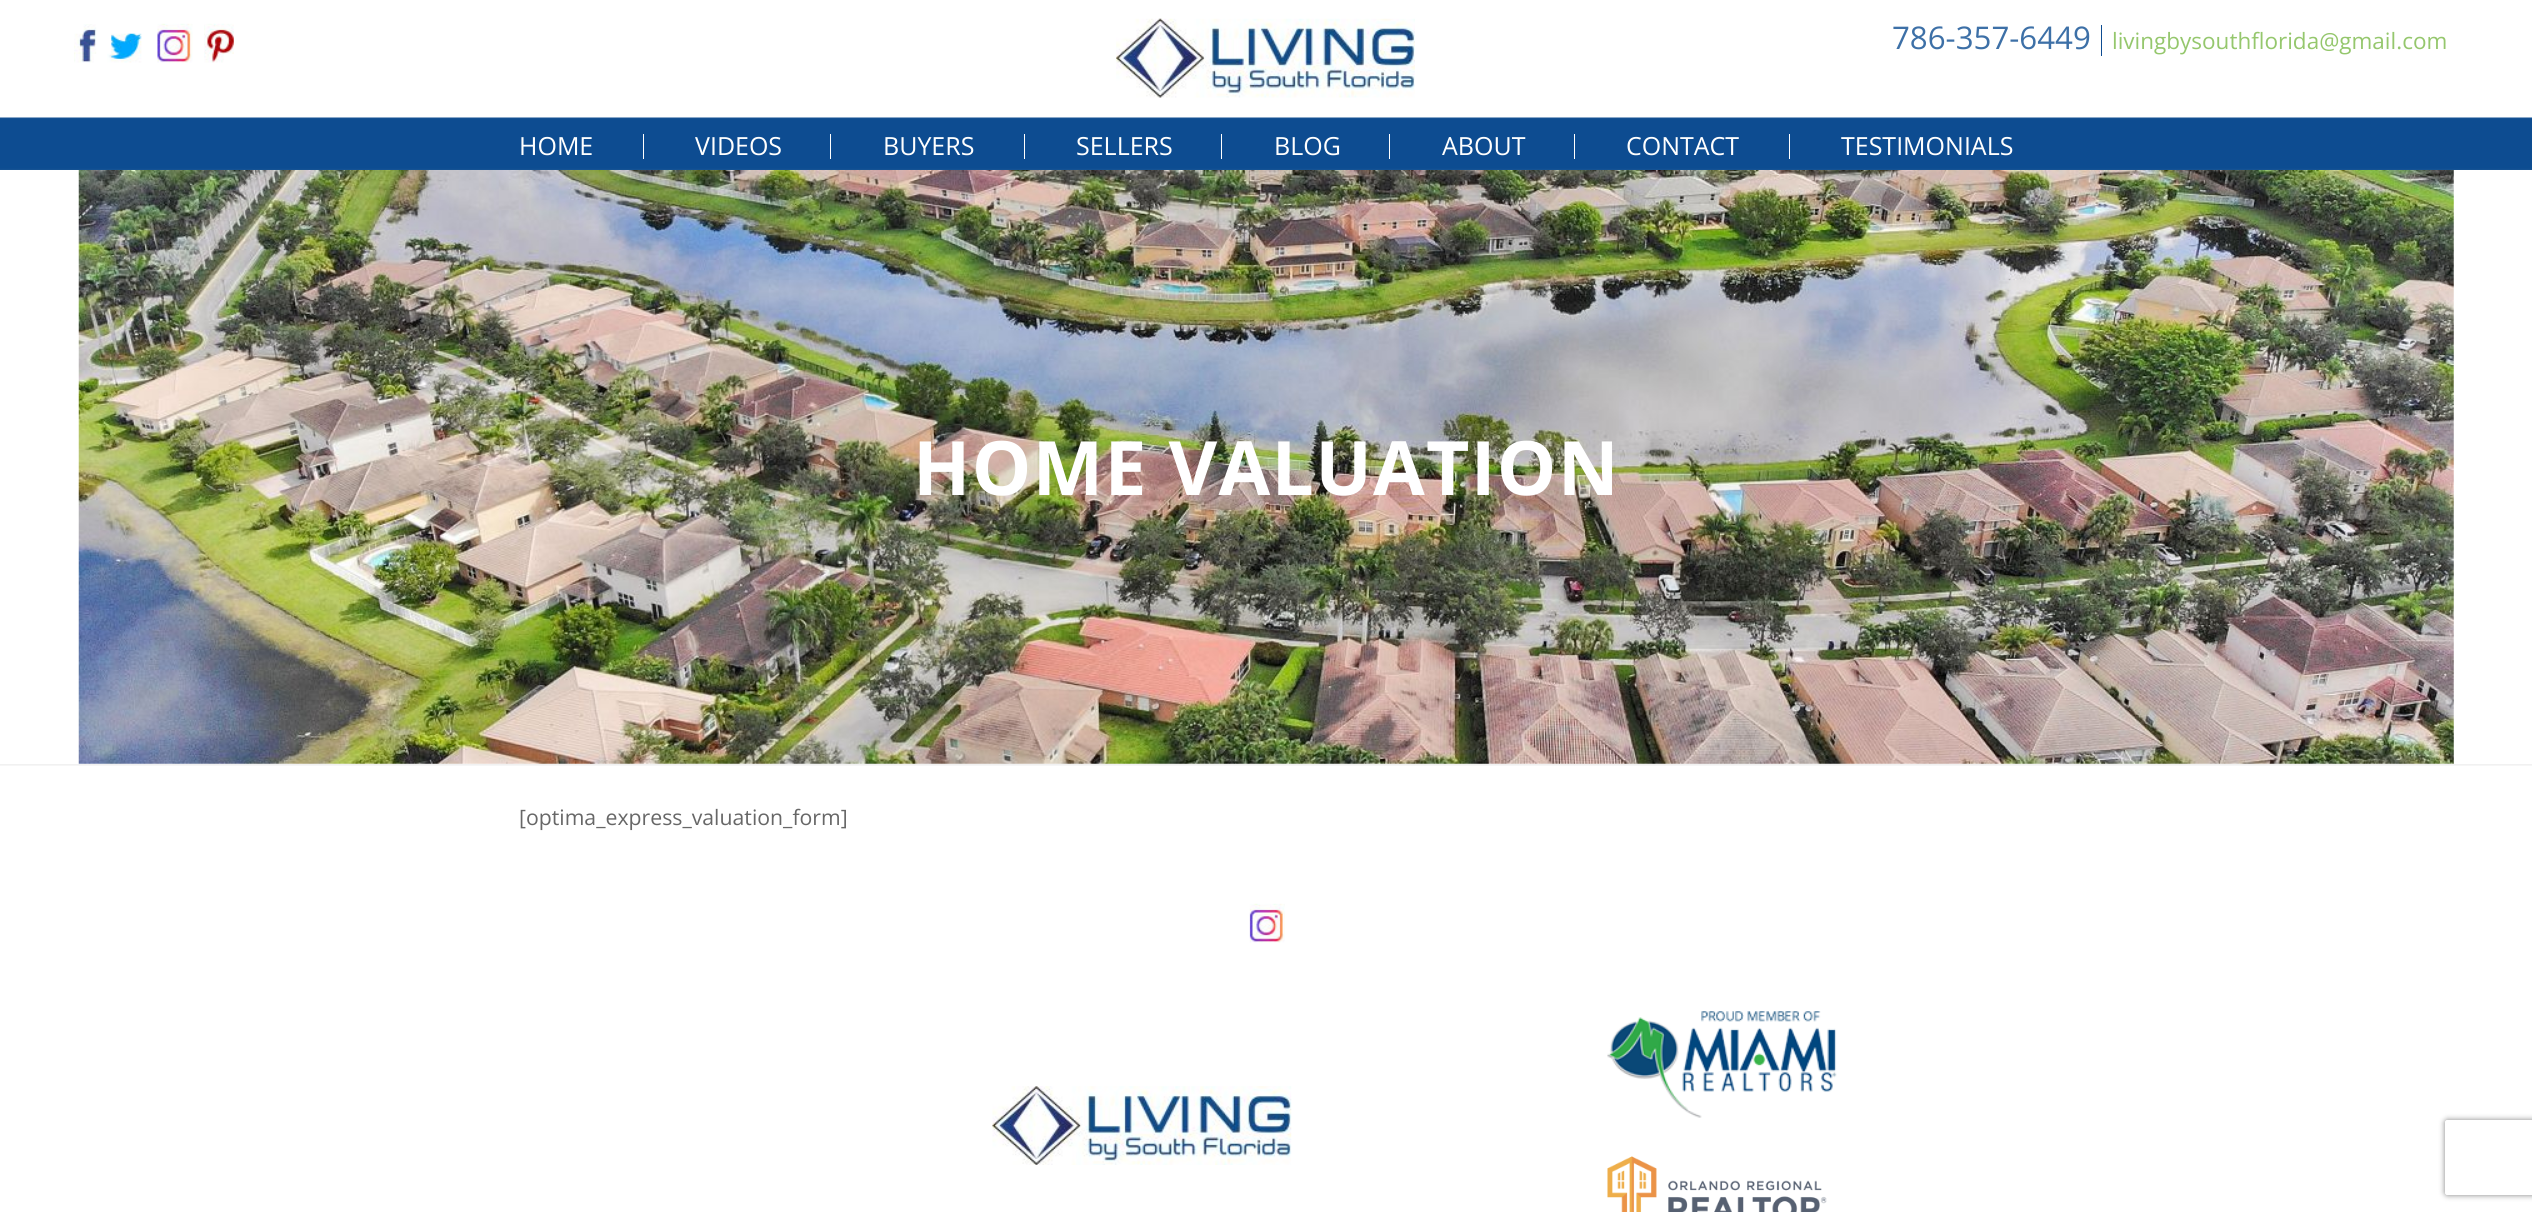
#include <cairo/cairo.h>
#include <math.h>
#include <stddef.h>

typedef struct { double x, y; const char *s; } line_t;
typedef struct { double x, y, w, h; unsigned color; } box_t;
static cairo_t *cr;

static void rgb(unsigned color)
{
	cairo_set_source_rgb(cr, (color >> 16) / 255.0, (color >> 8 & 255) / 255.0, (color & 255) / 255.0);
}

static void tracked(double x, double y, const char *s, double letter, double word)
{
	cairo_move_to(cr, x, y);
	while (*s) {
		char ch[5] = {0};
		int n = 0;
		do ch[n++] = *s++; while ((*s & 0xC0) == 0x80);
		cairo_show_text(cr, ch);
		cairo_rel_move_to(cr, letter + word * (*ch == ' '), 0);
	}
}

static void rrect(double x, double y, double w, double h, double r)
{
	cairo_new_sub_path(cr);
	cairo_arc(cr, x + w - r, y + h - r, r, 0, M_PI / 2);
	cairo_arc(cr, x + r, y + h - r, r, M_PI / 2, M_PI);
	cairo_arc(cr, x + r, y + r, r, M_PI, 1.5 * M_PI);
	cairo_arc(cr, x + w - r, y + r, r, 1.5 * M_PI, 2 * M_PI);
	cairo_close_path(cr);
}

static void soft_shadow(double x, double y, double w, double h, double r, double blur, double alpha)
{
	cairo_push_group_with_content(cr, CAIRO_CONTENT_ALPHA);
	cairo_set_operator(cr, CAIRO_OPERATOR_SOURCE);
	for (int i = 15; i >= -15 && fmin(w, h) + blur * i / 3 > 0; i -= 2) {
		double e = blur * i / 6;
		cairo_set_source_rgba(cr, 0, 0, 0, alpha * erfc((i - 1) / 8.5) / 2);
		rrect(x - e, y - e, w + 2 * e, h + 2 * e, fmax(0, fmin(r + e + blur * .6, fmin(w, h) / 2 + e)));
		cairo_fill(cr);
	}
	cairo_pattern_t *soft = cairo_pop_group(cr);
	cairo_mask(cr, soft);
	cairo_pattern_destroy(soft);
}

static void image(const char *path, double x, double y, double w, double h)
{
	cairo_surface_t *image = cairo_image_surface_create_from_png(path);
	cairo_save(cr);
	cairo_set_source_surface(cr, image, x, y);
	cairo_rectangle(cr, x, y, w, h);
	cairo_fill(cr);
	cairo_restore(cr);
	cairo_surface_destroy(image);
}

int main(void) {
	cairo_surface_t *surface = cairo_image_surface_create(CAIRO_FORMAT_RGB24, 2532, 1212);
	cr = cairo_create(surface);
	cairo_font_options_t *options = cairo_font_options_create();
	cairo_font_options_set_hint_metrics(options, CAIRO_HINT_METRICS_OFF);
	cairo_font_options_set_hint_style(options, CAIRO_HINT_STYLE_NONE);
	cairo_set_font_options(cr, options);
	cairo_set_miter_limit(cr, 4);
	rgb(0xffffff);
	cairo_paint(cr);
	image("img/1.png", 0, 117, 2532, 53);
	image("img/2.png", 1116, 18, 299, 80);
	image("img/3.png", 74, 24, 23, 39);
	image("img/4.png", 107, 33, 35, 30);
	image("img/5.png", 157, 23, 36, 40);
	image("img/6.png", 204, 23, 30, 40);
	{
		static const box_t items[] = {
			{2101, 25, 1, 31, 0x0d4c91},
			{643, 134, 1, 25, 0xffffff},
			{830, 134, 1, 25, 0xffffff},
			{1024, 134, 1, 25, 0xffffff},
			{1221, 134, 1, 25, 0xffffff},
			{1389, 134, 1, 25, 0xffffff},
			{1574, 134, 1, 25, 0xffffff},
			{1789, 134, 1, 25, 0xffffff},
		};
		for (size_t i = 0; i < sizeof items / sizeof *items; i++) {
			rgb(items[i].color);
			cairo_rectangle(cr, items[i].x, items[i].y, items[i].w, items[i].h);
			cairo_fill(cr);
		}
	}
	image("img/7.png", 78, 170, 2376, 594);
	image("img/8.png", 0, 764, 2532, 2);
	image("img/9.png", 1249, 903, 36, 40);
	image("img/10.png", 992, 1086, 300, 79);
	image("img/11.png", 1607, 1011, 230, 107);
	image("img/12.png", 1607, 1156, 220, 56);
	cairo_save(cr);
	cairo_set_fill_rule(cr, CAIRO_FILL_RULE_EVEN_ODD);
	cairo_new_path(cr);
	cairo_move_to(cr, 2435, 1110);
	cairo_line_to(cr, 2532, 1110);
	cairo_line_to(cr, 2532, 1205);
	cairo_line_to(cr, 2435, 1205);
	cairo_close_path(cr);
	cairo_move_to(cr, 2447.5, 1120);
	cairo_line_to(cr, 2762.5, 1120);
	cairo_curve_to(cr, 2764, 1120, 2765, 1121, 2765, 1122.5);
	cairo_line_to(cr, 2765, 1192.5);
	cairo_curve_to(cr, 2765, 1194, 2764, 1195, 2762.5, 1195);
	cairo_line_to(cr, 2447.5, 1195);
	cairo_curve_to(cr, 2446, 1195, 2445, 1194, 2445, 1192.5);
	cairo_line_to(cr, 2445, 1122.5);
	cairo_curve_to(cr, 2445, 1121, 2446, 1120, 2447.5, 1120);
	cairo_close_path(cr);
	cairo_clip(cr);
	rgb(0x808080);
	soft_shadow(2445, 1120, 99, 75, 2.5, 3, 1);
	cairo_restore(cr);
	cairo_select_font_face(cr, "Open Sans", CAIRO_FONT_SLANT_NORMAL, CAIRO_FONT_WEIGHT_NORMAL);
	cairo_set_font_size(cr, 31.25);
	rgb(0x3d70a7);
	cairo_move_to(cr, 1892, 49);
	cairo_show_text(cr, "786-357-6449");
	cairo_set_font_size(cr, 22.5);
	rgb(0x95c76d);
	cairo_move_to(cr, 2112, 49);
	cairo_show_text(cr, "livingbysouthflorida@gmail.com");
	cairo_set_font_size(cr, 25);
	rgb(0xffffff);
	{
		static const line_t items[] = {
			{519, 155, "HOME"},
			{695, 155, "VIDEOS"},
			{883, 155, "BUYERS"},
			{1076, 155, "SELLERS"},
			{1274, 155, "BLOG"},
			{1442, 155, "ABOUT"},
			{1626, 155, "CONTACT"},
			{1841, 155, "TESTIMONIALS"},
		};
		for (size_t i = 0; i < sizeof items / sizeof *items; i++) {
			cairo_move_to(cr, items[i].x, items[i].y);
			cairo_show_text(cr, items[i].s);
		}
	}
	cairo_select_font_face(cr, "Open Sans", CAIRO_FONT_SLANT_NORMAL, CAIRO_FONT_WEIGHT_BOLD);
	cairo_set_font_size(cr, 75);
	tracked(913, 495, "HOME VALUATION", 1.25, 0);
	cairo_select_font_face(cr, "Open Sans", CAIRO_FONT_SLANT_NORMAL, CAIRO_FONT_WEIGHT_NORMAL);
	cairo_set_font_size(cr, 21.25);
	rgb(0x676767);
	cairo_move_to(cr, 519, 825);
	cairo_show_text(cr, "[optima_express_valuation_form]");
	cairo_surface_write_to_png(surface, "page.png");
	cairo_font_options_destroy(options);
	cairo_destroy(cr);
	cairo_surface_destroy(surface);
	return 0;
}
